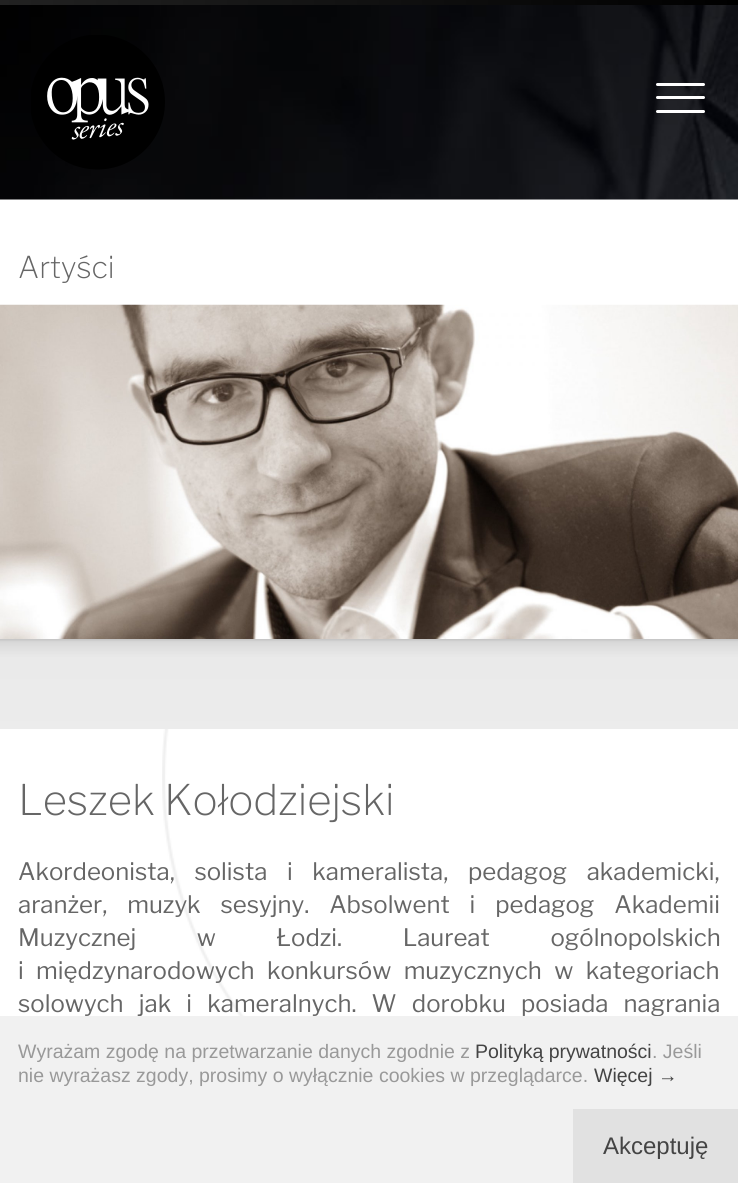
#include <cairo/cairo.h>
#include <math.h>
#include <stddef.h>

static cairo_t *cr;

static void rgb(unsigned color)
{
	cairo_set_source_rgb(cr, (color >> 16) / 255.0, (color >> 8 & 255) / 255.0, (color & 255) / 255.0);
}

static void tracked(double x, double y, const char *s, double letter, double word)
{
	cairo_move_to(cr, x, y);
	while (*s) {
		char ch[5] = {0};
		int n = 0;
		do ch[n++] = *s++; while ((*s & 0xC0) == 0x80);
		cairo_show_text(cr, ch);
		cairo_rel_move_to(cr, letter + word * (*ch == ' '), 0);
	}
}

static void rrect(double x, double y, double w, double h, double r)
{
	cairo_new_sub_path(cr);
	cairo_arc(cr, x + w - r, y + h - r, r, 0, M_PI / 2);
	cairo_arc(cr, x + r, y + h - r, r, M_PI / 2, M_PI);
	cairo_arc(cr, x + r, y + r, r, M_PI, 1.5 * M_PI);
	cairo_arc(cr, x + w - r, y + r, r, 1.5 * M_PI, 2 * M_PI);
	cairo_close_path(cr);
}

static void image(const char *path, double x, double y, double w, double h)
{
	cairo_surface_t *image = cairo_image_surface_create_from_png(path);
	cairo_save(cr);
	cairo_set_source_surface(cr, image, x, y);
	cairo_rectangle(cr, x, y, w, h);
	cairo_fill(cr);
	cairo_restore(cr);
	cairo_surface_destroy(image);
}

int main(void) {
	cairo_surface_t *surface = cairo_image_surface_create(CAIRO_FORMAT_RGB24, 738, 1183);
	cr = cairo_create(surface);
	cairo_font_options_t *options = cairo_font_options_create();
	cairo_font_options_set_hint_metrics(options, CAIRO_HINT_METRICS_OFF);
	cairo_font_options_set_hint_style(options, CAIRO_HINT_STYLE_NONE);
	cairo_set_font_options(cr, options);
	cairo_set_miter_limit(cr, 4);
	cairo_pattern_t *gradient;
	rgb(0xffffff);
	cairo_paint(cr);
	gradient = cairo_pattern_create_linear(0, -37, 738, -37);
	cairo_pattern_add_color_stop_rgba(gradient, 0, 0.133, 0.133, 0.133, 1);
	cairo_pattern_add_color_stop_rgba(gradient, 1, 0, 0, 0, 1);
	cairo_set_source(cr, gradient);
	cairo_pattern_destroy(gradient);
	cairo_rectangle(cr, 0, 0, 738, 5);
	cairo_fill(cr);
	image("img/1.png", 0, 5, 738, 195);
	image("img/2.png", 31, 35, 134, 135);
	rgb(0xffffff);
	rrect(656, 83, 49, 3, 1.5);
	cairo_fill(cr);
	rrect(656, 96, 49, 3, 1.5);
	cairo_fill(cr);
	rrect(656, 110, 49, 3, 1.5);
	cairo_fill(cr);
	image("img/3.png", 0, 304, 738, 335);
	image("img/4.png", 0, 639, 738, 90);
	image("img/5.png", 162, 729, 576, 287);
	cairo_select_font_face(cr, "Libre Franklin ExtraLight", CAIRO_FONT_SLANT_NORMAL, CAIRO_FONT_WEIGHT_NORMAL);
	cairo_set_font_size(cr, 30);
	rgb(0x666666);
	cairo_move_to(cr, 18, 278);
	cairo_show_text(cr, "Artyści");
	cairo_set_font_size(cr, 42);
	cairo_move_to(cr, 18, 815);
	cairo_show_text(cr, "Leszek Kołodziejski");
	cairo_select_font_face(cr, "Libre Franklin", CAIRO_FONT_SLANT_NORMAL, CAIRO_FONT_WEIGHT_NORMAL);
	cairo_set_font_size(cr, 24);
	tracked(18, 880, "Akordeonista, solista i kameralista, pedagog akademicki,", 0, 14.5);
	tracked(18, 913, "aranżer, muzyk sesyjny. Absolwent i pedagog Akademii", 0, 14.75);
	tracked(18, 946, "Muzycznej w Łodzi. Laureat ogólnopolskich", 0, 55.5);
	tracked(18, 979, "i międzynarodowych konkursów muzycznych w kategoriach", 0, 7.25);
	tracked(18, 1012, "solowych jak i kameralnych. W dorobku posiada nagrania", 0, 10);
	rgb(0xf1f1f1);
	cairo_rectangle(cr, 0, 1016, 738, 167);
	cairo_fill(cr);
	cairo_select_font_face(cr, "Liberation Sans", CAIRO_FONT_SLANT_NORMAL, CAIRO_FONT_WEIGHT_NORMAL);
	cairo_set_font_size(cr, 19.5);
	rgb(0x999999);
	cairo_move_to(cr, 18, 1058);
	cairo_show_text(cr, "Wyrażam zgodę na przetwarzanie danych zgodnie z");
	rgb(0x444444);
	cairo_move_to(cr, 475, 1058);
	cairo_show_text(cr, "Polityką prywatności");
	rgb(0x999999);
	cairo_move_to(cr, 652, 1058);
	cairo_show_text(cr, ". Jeśli");
	cairo_move_to(cr, 18, 1082);
	cairo_show_text(cr, "nie wyrażasz zgody, prosimy o wyłącznie cookies w przeglądarce.");
	rgb(0x444444);
	cairo_move_to(cr, 594, 1082);
	cairo_show_text(cr, "Więcej →");
	rgb(0xe1e1e1);
	cairo_rectangle(cr, 573, 1109, 165, 74);
	cairo_fill(cr);
	cairo_set_font_size(cr, 24);
	rgb(0x444444);
	cairo_move_to(cr, 603, 1154);
	cairo_show_text(cr, "Akceptuję");
	cairo_surface_write_to_png(surface, "page.png");
	cairo_font_options_destroy(options);
	cairo_destroy(cr);
	cairo_surface_destroy(surface);
	return 0;
}
